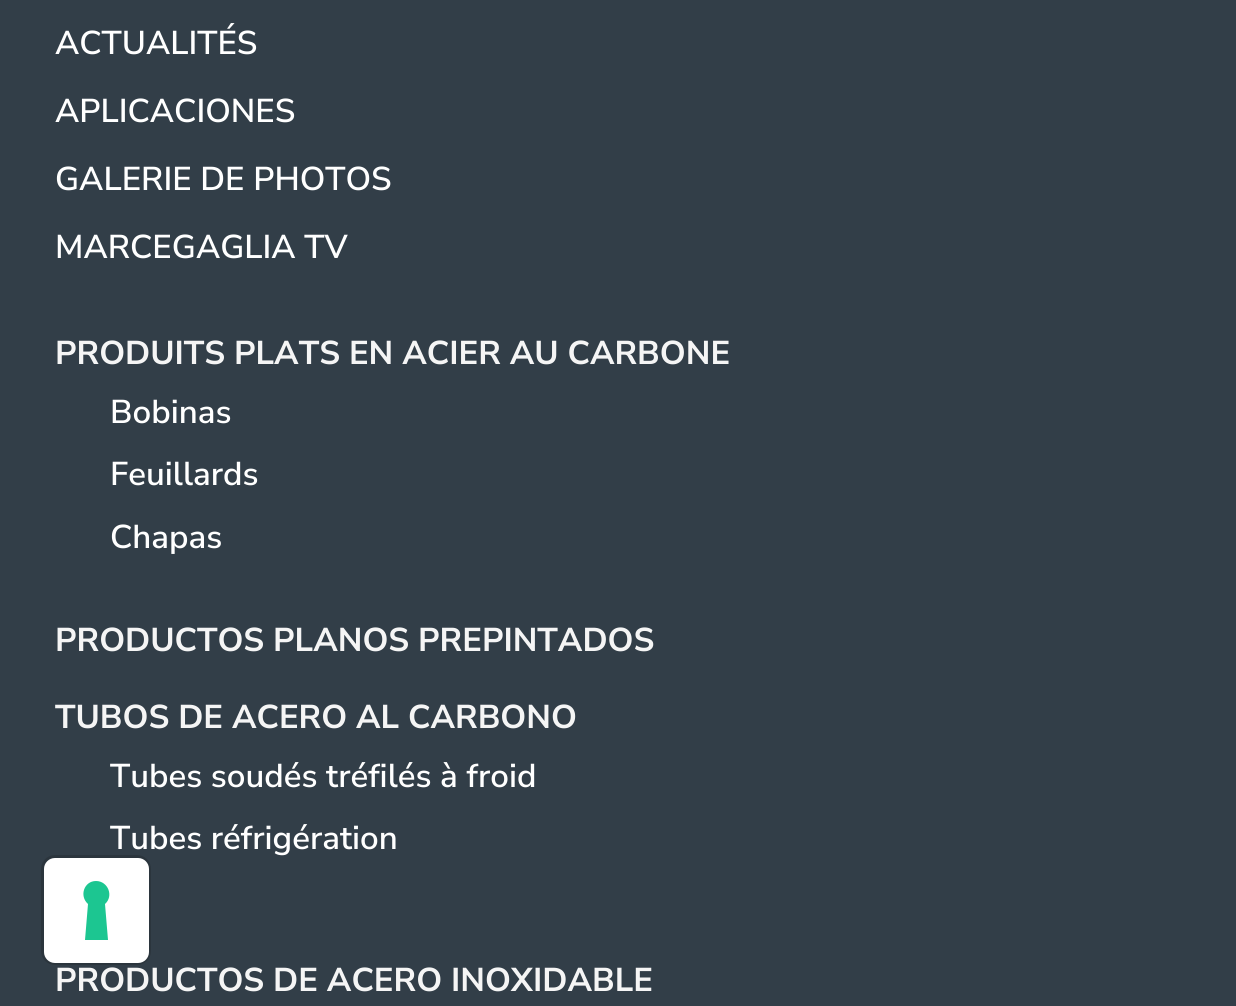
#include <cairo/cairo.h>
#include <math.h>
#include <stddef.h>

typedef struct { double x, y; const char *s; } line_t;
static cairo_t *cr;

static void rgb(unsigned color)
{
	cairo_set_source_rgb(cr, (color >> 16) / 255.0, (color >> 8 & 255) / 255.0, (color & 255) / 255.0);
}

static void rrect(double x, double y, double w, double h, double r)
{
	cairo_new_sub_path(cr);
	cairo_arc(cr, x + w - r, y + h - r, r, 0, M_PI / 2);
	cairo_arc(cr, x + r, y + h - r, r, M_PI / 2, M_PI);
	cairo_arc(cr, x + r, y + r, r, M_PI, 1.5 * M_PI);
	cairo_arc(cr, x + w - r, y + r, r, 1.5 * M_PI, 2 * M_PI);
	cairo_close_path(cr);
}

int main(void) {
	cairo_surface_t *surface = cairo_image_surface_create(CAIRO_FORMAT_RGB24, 1236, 1006);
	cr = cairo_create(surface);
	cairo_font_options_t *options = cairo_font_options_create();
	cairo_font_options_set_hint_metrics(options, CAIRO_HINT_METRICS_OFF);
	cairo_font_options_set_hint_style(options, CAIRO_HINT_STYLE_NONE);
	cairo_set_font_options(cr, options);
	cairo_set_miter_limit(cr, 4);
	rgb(0x323e48);
	cairo_paint(cr);
	cairo_select_font_face(cr, "Nunito Sans SemiBold", CAIRO_FONT_SLANT_NORMAL, CAIRO_FONT_WEIGHT_NORMAL);
	cairo_set_font_size(cr, 33);
	rgb(0xffffff);
	{
		static const line_t items[] = {
			{55, 54, "ACTUALITÉS"},
			{55, 122, "APLICACIONES"},
			{55, 190, "GALERIE DE PHOTOS"},
			{55, 258, "MARCEGAGLIA TV"},
		};
		for (size_t i = 0; i < sizeof items / sizeof *items; i++) {
			cairo_move_to(cr, items[i].x, items[i].y);
			cairo_show_text(cr, items[i].s);
		}
	}
	cairo_select_font_face(cr, "Nunito Sans", CAIRO_FONT_SLANT_NORMAL, CAIRO_FONT_WEIGHT_BOLD);
	rgb(0xf5f5f5);
	cairo_move_to(cr, 55, 364);
	cairo_show_text(cr, "PRODUITS PLATS EN ACIER AU CARBONE");
	cairo_select_font_face(cr, "Nunito Sans SemiBold", CAIRO_FONT_SLANT_NORMAL, CAIRO_FONT_WEIGHT_NORMAL);
	rgb(0xffffff);
	{
		static const line_t items[] = {
			{110, 423, "Bobinas"},
			{110, 485, "Feuillards"},
			{110, 548, "Chapas"},
		};
		for (size_t i = 0; i < sizeof items / sizeof *items; i++) {
			cairo_move_to(cr, items[i].x, items[i].y);
			cairo_show_text(cr, items[i].s);
		}
	}
	cairo_select_font_face(cr, "Nunito Sans", CAIRO_FONT_SLANT_NORMAL, CAIRO_FONT_WEIGHT_BOLD);
	rgb(0xf5f5f5);
	cairo_move_to(cr, 55, 651);
	cairo_show_text(cr, "PRODUCTOS PLANOS PREPINTADOS");
	cairo_move_to(cr, 55, 728);
	cairo_show_text(cr, "TUBOS DE ACERO AL CARBONO");
	cairo_select_font_face(cr, "Nunito Sans SemiBold", CAIRO_FONT_SLANT_NORMAL, CAIRO_FONT_WEIGHT_NORMAL);
	rgb(0xffffff);
	cairo_move_to(cr, 110, 787);
	cairo_show_text(cr, "Tubes soudés tréfilés à froid");
	cairo_move_to(cr, 110, 849);
	cairo_show_text(cr, "Tubes réfrigération");
	cairo_select_font_face(cr, "Nunito Sans", CAIRO_FONT_SLANT_NORMAL, CAIRO_FONT_WEIGHT_BOLD);
	rgb(0xf5f5f5);
	cairo_move_to(cr, 55, 991);
	cairo_show_text(cr, "PRODUCTOS DE ACERO INOXIDABLE");
	rrect(42.5, 856.5, 107, 107, 12.5);
	rgb(0x2b353d);
	cairo_set_line_width(cr, 3);
	cairo_stroke(cr);
	rgb(0xffffff);
	rrect(44, 858, 105, 105, 11);
	cairo_fill(cr);
	rgb(0x1cc691);
	cairo_set_fill_rule(cr, CAIRO_FILL_RULE_EVEN_ODD);
	cairo_new_path(cr);
	cairo_move_to(cr, 96, 881);
	cairo_curve_to(cr, 108, 881, 114, 896, 105, 904);
	cairo_line_to(cr, 108, 940);
	cairo_line_to(cr, 85, 940);
	cairo_line_to(cr, 88, 904);
	cairo_curve_to(cr, 79, 896, 84, 881, 96, 881);
	cairo_close_path(cr);
	cairo_fill(cr);
	cairo_surface_write_to_png(surface, "page.png");
	cairo_font_options_destroy(options);
	cairo_destroy(cr);
	cairo_surface_destroy(surface);
	return 0;
}
